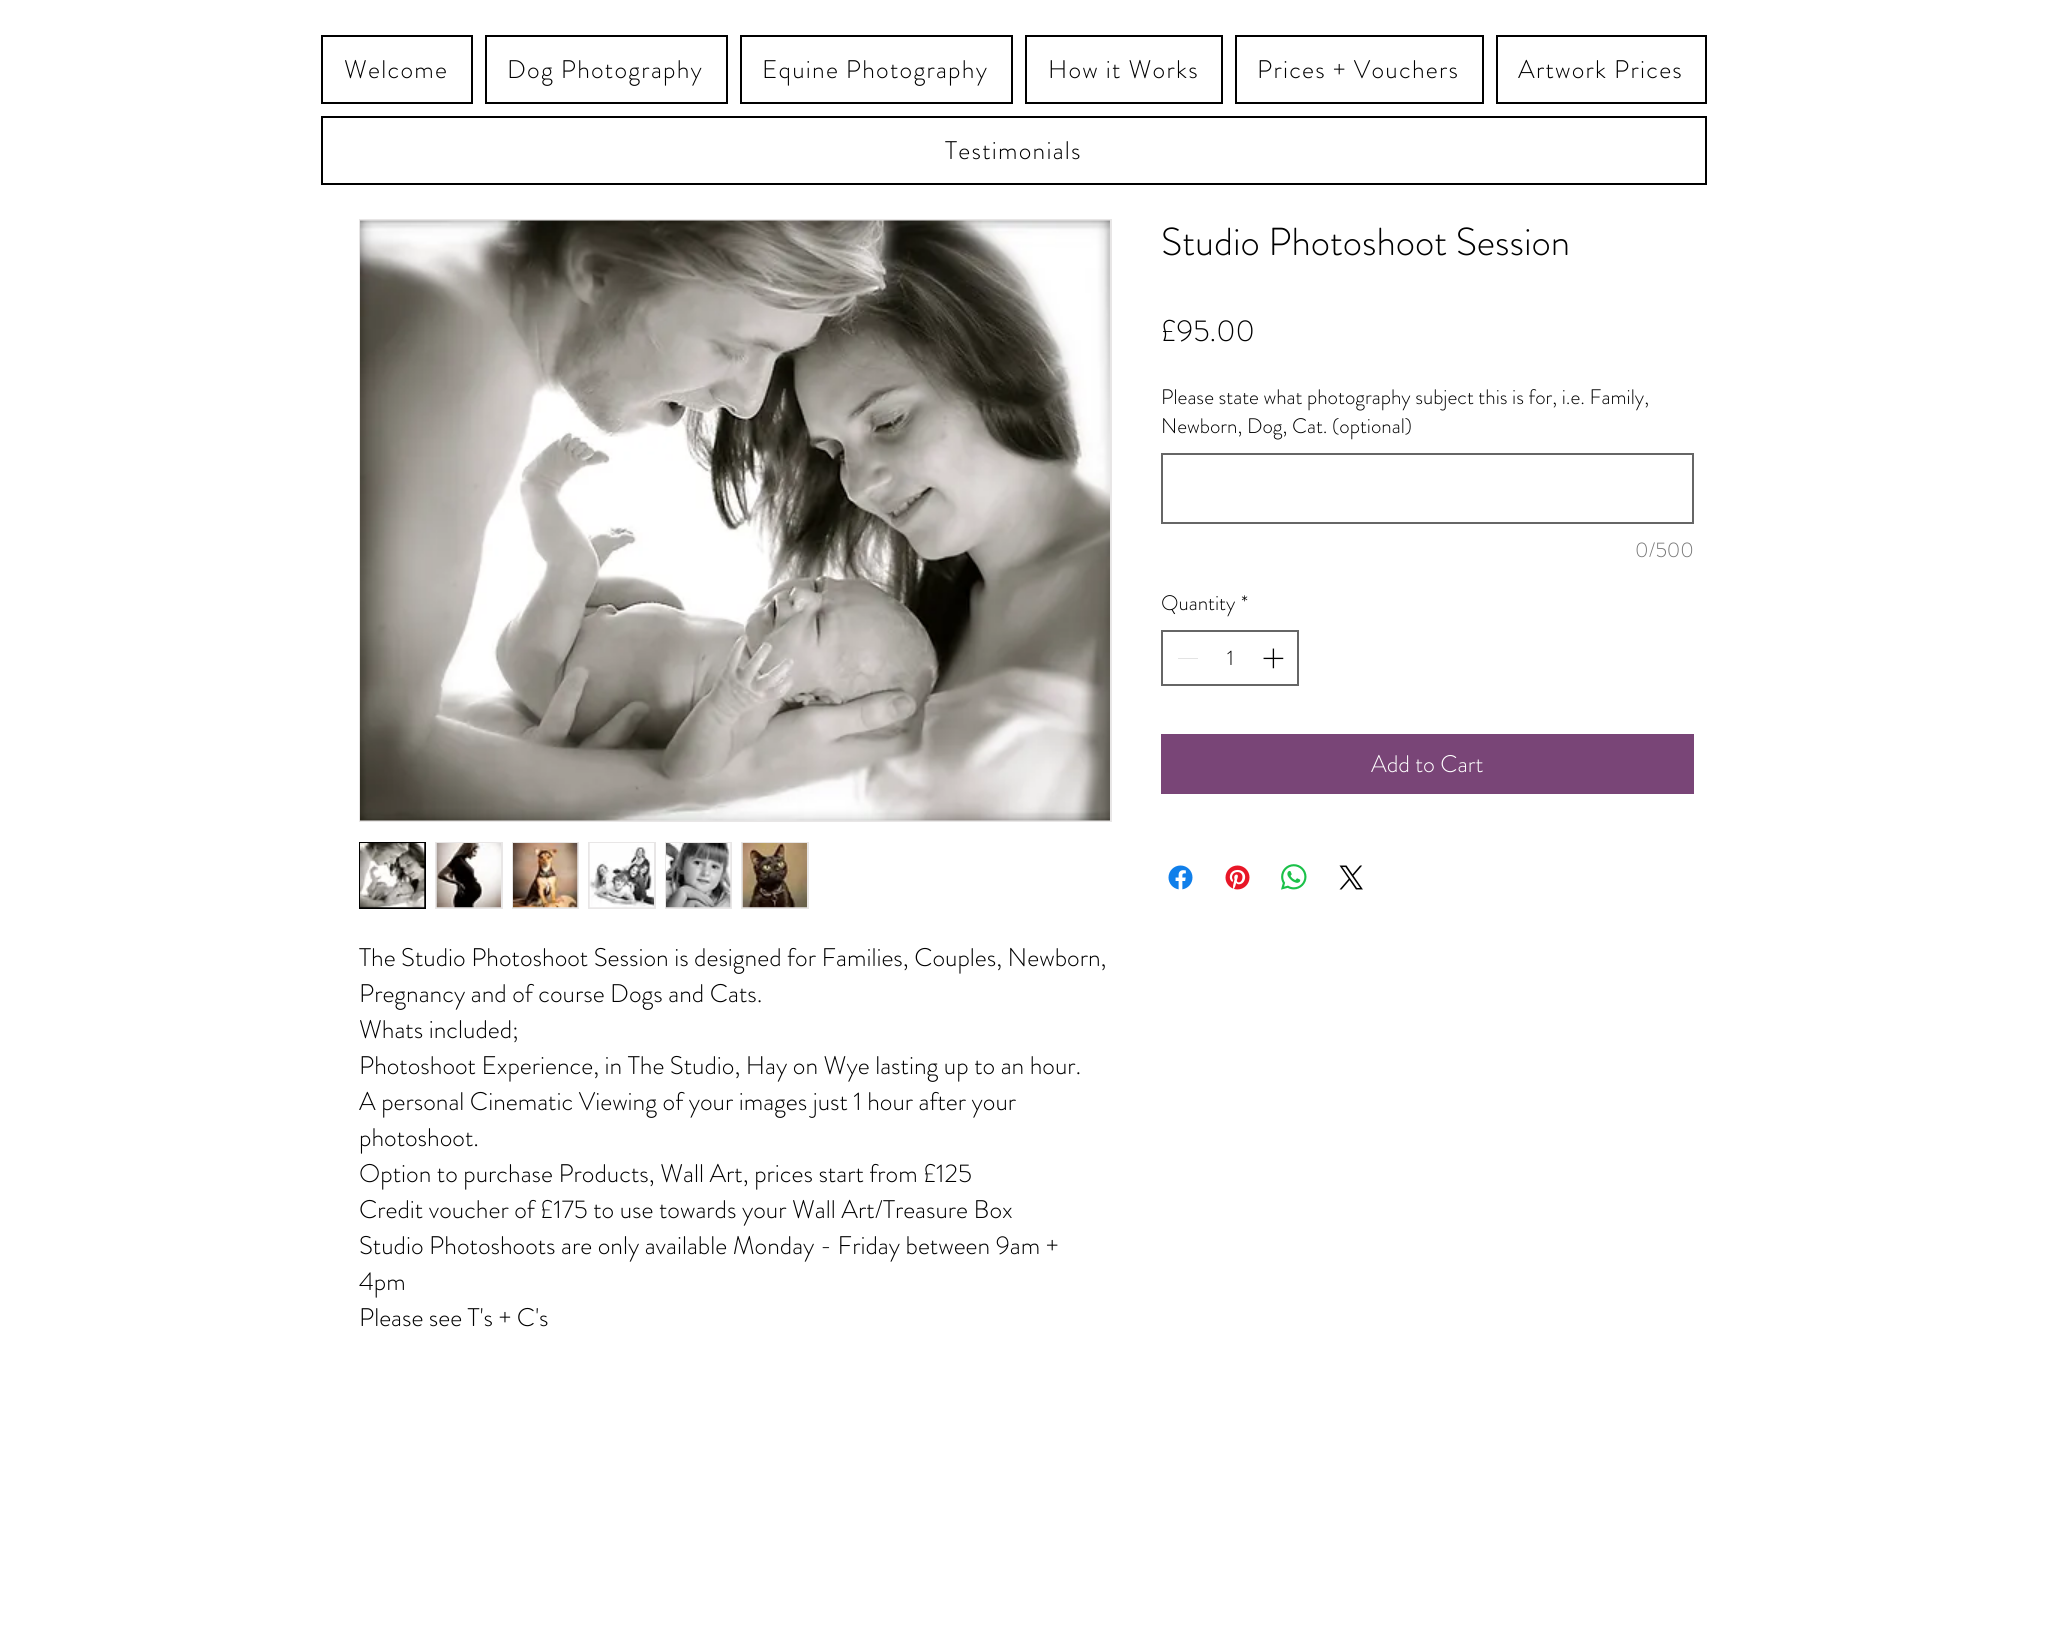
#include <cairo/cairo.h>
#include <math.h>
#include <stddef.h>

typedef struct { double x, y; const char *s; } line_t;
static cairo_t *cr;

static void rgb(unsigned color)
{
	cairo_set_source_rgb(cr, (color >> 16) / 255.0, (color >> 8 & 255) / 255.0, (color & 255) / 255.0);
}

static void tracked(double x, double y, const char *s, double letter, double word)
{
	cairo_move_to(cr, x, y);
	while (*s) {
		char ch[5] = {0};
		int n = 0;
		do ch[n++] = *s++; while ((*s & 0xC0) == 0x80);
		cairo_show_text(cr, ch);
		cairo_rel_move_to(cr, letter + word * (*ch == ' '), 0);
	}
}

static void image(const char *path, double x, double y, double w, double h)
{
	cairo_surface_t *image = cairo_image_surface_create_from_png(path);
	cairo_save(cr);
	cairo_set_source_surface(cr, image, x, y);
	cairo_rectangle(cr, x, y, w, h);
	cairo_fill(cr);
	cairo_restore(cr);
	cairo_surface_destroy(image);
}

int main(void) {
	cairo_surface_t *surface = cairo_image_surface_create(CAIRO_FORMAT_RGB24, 2051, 1634);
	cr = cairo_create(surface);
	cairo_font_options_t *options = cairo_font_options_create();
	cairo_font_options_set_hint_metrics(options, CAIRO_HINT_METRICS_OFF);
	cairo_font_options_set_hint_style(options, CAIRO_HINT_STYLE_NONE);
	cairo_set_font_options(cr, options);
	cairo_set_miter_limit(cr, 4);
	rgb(0xffffff);
	cairo_paint(cr);
	cairo_rectangle(cr, 322, 36, 150, 67);
	rgb(0x000000);
	cairo_stroke(cr);
	cairo_rectangle(cr, 486, 36, 241, 67);
	cairo_stroke(cr);
	cairo_rectangle(cr, 741, 36, 271, 67);
	cairo_stroke(cr);
	cairo_rectangle(cr, 1026, 36, 196, 67);
	cairo_stroke(cr);
	cairo_rectangle(cr, 1236, 36, 247, 67);
	cairo_stroke(cr);
	cairo_rectangle(cr, 1497, 36, 209, 67);
	cairo_stroke(cr);
	cairo_rectangle(cr, 322, 117, 1384, 67);
	cairo_stroke(cr);
	cairo_rectangle(cr, 1162, 454, 531, 69);
	rgb(0x666666);
	cairo_stroke(cr);
	cairo_rectangle(cr, 1162, 631, 136, 54);
	cairo_stroke(cr);
	rgb(0xe3e3e3);
	cairo_rectangle(cr, 1178, 658, 20, 1);
	cairo_fill(cr);
	image("img/1.png", 1263, 648, 21, 21);
	rgb(0x794577);
	cairo_rectangle(cr, 1161, 734, 533, 60);
	cairo_fill(cr);
	image("img/2.png", 1168, 865, 25, 25);
	image("img/3.png", 1225, 865, 25, 25);
	image("img/4.png", 1281, 864, 26, 26);
	image("img/5.png", 1339, 865, 24, 25);
	cairo_rectangle(cr, 360, 220, 751, 601);
	rgb(0xe8e6e6);
	cairo_stroke(cr);
	image("img/6.png", 360, 220, 750, 601);
	cairo_rectangle(cr, 360, 843, 65, 65);
	rgb(0x000000);
	cairo_stroke(cr);
	image("img/7.png", 360, 843, 65, 65);
	rgb(0xe8e6e6);
	cairo_rectangle(cr, 435, 842, 68, 67);
	cairo_fill(cr);
	image("img/8.png", 436, 843, 65, 65);
	cairo_rectangle(cr, 512, 842, 67, 67);
	cairo_fill(cr);
	image("img/9.png", 513, 843, 65, 65);
	cairo_rectangle(cr, 588, 842, 68, 67);
	cairo_fill(cr);
	image("img/10.png", 589, 843, 65, 65);
	cairo_rectangle(cr, 665, 842, 67, 67);
	cairo_fill(cr);
	image("img/11.png", 666, 843, 65, 65);
	cairo_rectangle(cr, 741, 842, 68, 67);
	cairo_fill(cr);
	image("img/12.png", 742, 843, 65, 65);
	cairo_select_font_face(cr, "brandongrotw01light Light", CAIRO_FONT_SLANT_NORMAL, CAIRO_FONT_WEIGHT_NORMAL);
	cairo_set_font_size(cr, 25.5);
	rgb(0x000000);
	{
		static const line_t items[] = {
			{344, 78, "Welcome"},
			{507, 78, "Dog Photography"},
			{762, 78, "Equine Photography"},
			{1048, 78, "How it Works"},
			{1257, 78, "Prices + Vouchers"},
			{1518, 78, "Artwork Prices"},
			{945, 159, "Testimonials"},
		};
		for (size_t i = 0; i < sizeof items / sizeof *items; i++) {
			tracked(items[i].x, items[i].y, items[i].s, 1.25, 0);
		}
	}
	cairo_set_font_size(cr, 39);
	cairo_move_to(cr, 1161, 255);
	cairo_show_text(cr, "Studio Photoshoot Session");
	cairo_set_font_size(cr, 30);
	cairo_move_to(cr, 1161, 341);
	cairo_show_text(cr, "£95.00");
	cairo_set_font_size(cr, 21);
	cairo_move_to(cr, 1161, 404);
	cairo_show_text(cr, "Please state what photography subject this is for, i.e. Family,");
	cairo_move_to(cr, 1161, 433);
	cairo_show_text(cr, "Newborn, Dog, Cat. (optional)");
	rgb(0x757575);
	cairo_move_to(cr, 1635, 557);
	cairo_show_text(cr, "0/500");
	rgb(0x000000);
	{
		static const line_t items[] = {
			{1161, 610, "Quantity"},
			{1241, 610, "*"},
			{1227, 665, "1"},
		};
		for (size_t i = 0; i < sizeof items / sizeof *items; i++) {
			cairo_move_to(cr, items[i].x, items[i].y);
			cairo_show_text(cr, items[i].s);
		}
	}
	cairo_set_font_size(cr, 24);
	rgb(0xffffff);
	cairo_move_to(cr, 1371, 772);
	cairo_show_text(cr, "Add to Cart");
	cairo_set_font_size(cr, 25.5);
	rgb(0x000000);
	{
		static const line_t items[] = {
			{359, 966, "The Studio Photoshoot Session is designed for Families, Couples, Newborn,"},
			{359, 1002, "Pregnancy and of course Dogs and Cats."},
			{359, 1038, "Whats included;"},
			{359, 1074, "Photoshoot Experience, in The Studio, Hay on Wye lasting up to an hour."},
			{359, 1110, "A personal Cinematic Viewing of your images just 1 hour after your"},
			{359, 1146, "photoshoot."},
			{359, 1182, "Option to purchase Products, Wall Art, prices start from £125"},
			{359, 1218, "Credit voucher of £175 to use towards your Wall Art/Treasure Box"},
			{359, 1254, "Studio Photoshoots are only available Monday - Friday between 9am +"},
			{359, 1290, "4pm"},
			{359, 1326, "Please see T's + C's"},
		};
		for (size_t i = 0; i < sizeof items / sizeof *items; i++) {
			cairo_move_to(cr, items[i].x, items[i].y);
			cairo_show_text(cr, items[i].s);
		}
	}
	cairo_surface_write_to_png(surface, "page.png");
	cairo_font_options_destroy(options);
	cairo_destroy(cr);
	cairo_surface_destroy(surface);
	return 0;
}
